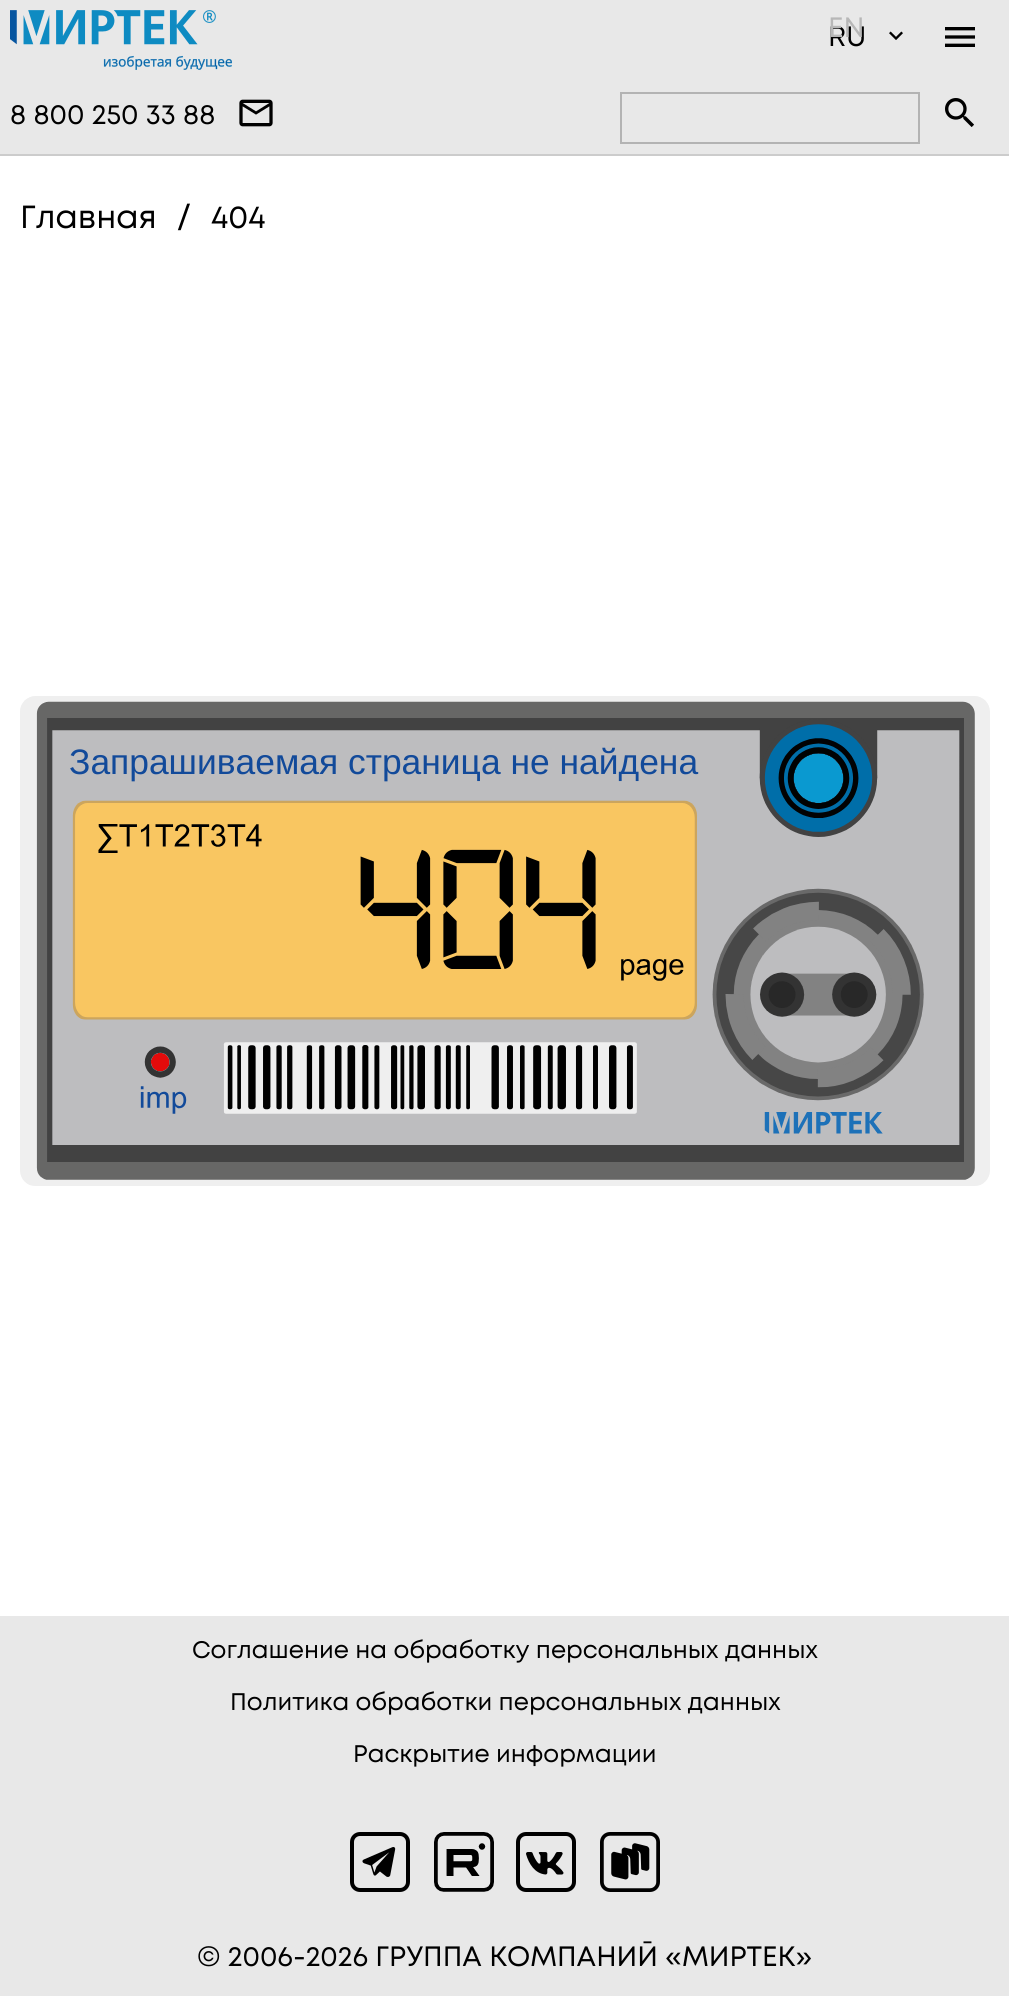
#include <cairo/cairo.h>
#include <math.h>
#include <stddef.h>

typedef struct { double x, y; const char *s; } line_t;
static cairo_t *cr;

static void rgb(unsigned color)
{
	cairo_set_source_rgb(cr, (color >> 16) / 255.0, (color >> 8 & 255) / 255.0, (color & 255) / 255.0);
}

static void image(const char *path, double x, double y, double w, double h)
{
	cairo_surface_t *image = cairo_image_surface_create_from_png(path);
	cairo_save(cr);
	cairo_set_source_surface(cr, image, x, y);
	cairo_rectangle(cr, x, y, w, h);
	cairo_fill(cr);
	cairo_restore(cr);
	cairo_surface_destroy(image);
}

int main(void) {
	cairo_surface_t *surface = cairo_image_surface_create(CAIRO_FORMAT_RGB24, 1009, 1996);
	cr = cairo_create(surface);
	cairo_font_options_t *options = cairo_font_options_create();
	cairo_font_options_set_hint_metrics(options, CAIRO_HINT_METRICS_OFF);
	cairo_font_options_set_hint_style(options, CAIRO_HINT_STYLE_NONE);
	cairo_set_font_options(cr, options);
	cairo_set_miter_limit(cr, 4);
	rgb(0xffffff);
	cairo_paint(cr);
	rgb(0xe8e8e8);
	cairo_rectangle(cr, 0, 0, 1009, 154);
	cairo_fill(cr);
	rgb(0xcccccc);
	cairo_rectangle(cr, 0, 154, 1009, 2);
	cairo_fill(cr);
	image("img/1.png", 10, 10, 222, 60);
	image("img/2.png", 889, 31, 14, 9);
	image("img/3.png", 945, 27, 30, 20);
	cairo_rectangle(cr, 621, 93, 298, 50);
	rgb(0xb3b3b3);
	cairo_stroke(cr);
	image("img/4.png", 945, 98, 29, 29);
	image("img/5.png", 239, 99, 34, 28);
	rgb(0x0a99d0);
	cairo_rectangle(cr, 794, 753, 49, 50);
	cairo_fill(cr);
	rgb(0xe30b0b);
	cairo_rectangle(cr, 151, 1053, 19, 19);
	cairo_fill(cr);
	image("img/6.png", 20, 696, 970, 490);
	rgb(0xe8e8e8);
	cairo_rectangle(cr, 0, 1616, 1009, 380);
	cairo_fill(cr);
	image("img/7.png", 350, 1832, 60, 60);
	image("img/8.png", 434, 1832, 60, 60);
	image("img/9.png", 516, 1832, 60, 60);
	image("img/10.png", 600, 1832, 60, 60);
	cairo_select_font_face(cr, "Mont", CAIRO_FONT_SLANT_NORMAL, CAIRO_FONT_WEIGHT_NORMAL);
	cairo_set_font_size(cr, 28);
	rgb(0x000000);
	cairo_move_to(cr, 828, 46);
	cairo_show_text(cr, "RU");
	rgb(0xb7b7b7);
	cairo_move_to(cr, 828, 37);
	cairo_show_text(cr, "EN");
	rgb(0x000000);
	cairo_move_to(cr, 10, 124);
	cairo_show_text(cr, "8 800 250 33 88");
	cairo_set_font_size(cr, 32);
	{
		static const line_t items[] = {
			{20, 228, "Главная"},
			{177, 228, "/"},
			{211, 228, "404"},
		};
		for (size_t i = 0; i < sizeof items / sizeof *items; i++) {
			cairo_move_to(cr, items[i].x, items[i].y);
			cairo_show_text(cr, items[i].s);
		}
	}
	cairo_select_font_face(cr, "Liberation Sans", CAIRO_FONT_SLANT_NORMAL, CAIRO_FONT_WEIGHT_NORMAL);
	cairo_set_font_size(cr, 35.4);
	rgb(0x124a9a);
	cairo_move_to(cr, 69, 774);
	cairo_show_text(cr, "Запрашиваемая страница не найдена");
	cairo_select_font_face(cr, "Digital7", CAIRO_FONT_SLANT_NORMAL, CAIRO_FONT_WEIGHT_NORMAL);
	cairo_set_font_size(cr, 182);
	rgb(0x000000);
	cairo_move_to(cr, 354, 969);
	cairo_show_text(cr, "404");
	cairo_select_font_face(cr, "Mont", CAIRO_FONT_SLANT_NORMAL, CAIRO_FONT_WEIGHT_NORMAL);
	cairo_set_font_size(cr, 24);
	{
		static const line_t items[] = {
			{192, 1658, "Соглашение на обработку персональных данных"},
			{230, 1710, "Политика обработки персональных данных"},
			{353, 1762, "Раскрытие информации"},
		};
		for (size_t i = 0; i < sizeof items / sizeof *items; i++) {
			cairo_move_to(cr, items[i].x, items[i].y);
			cairo_show_text(cr, items[i].s);
		}
	}
	cairo_set_font_size(cr, 28);
	cairo_move_to(cr, 197, 1966);
	cairo_show_text(cr, "© 2006-2026 ГРУППА КОМПАНИЙ «МИРТЕК»");
	cairo_surface_write_to_png(surface, "page.png");
	cairo_font_options_destroy(options);
	cairo_destroy(cr);
	cairo_surface_destroy(surface);
	return 0;
}
